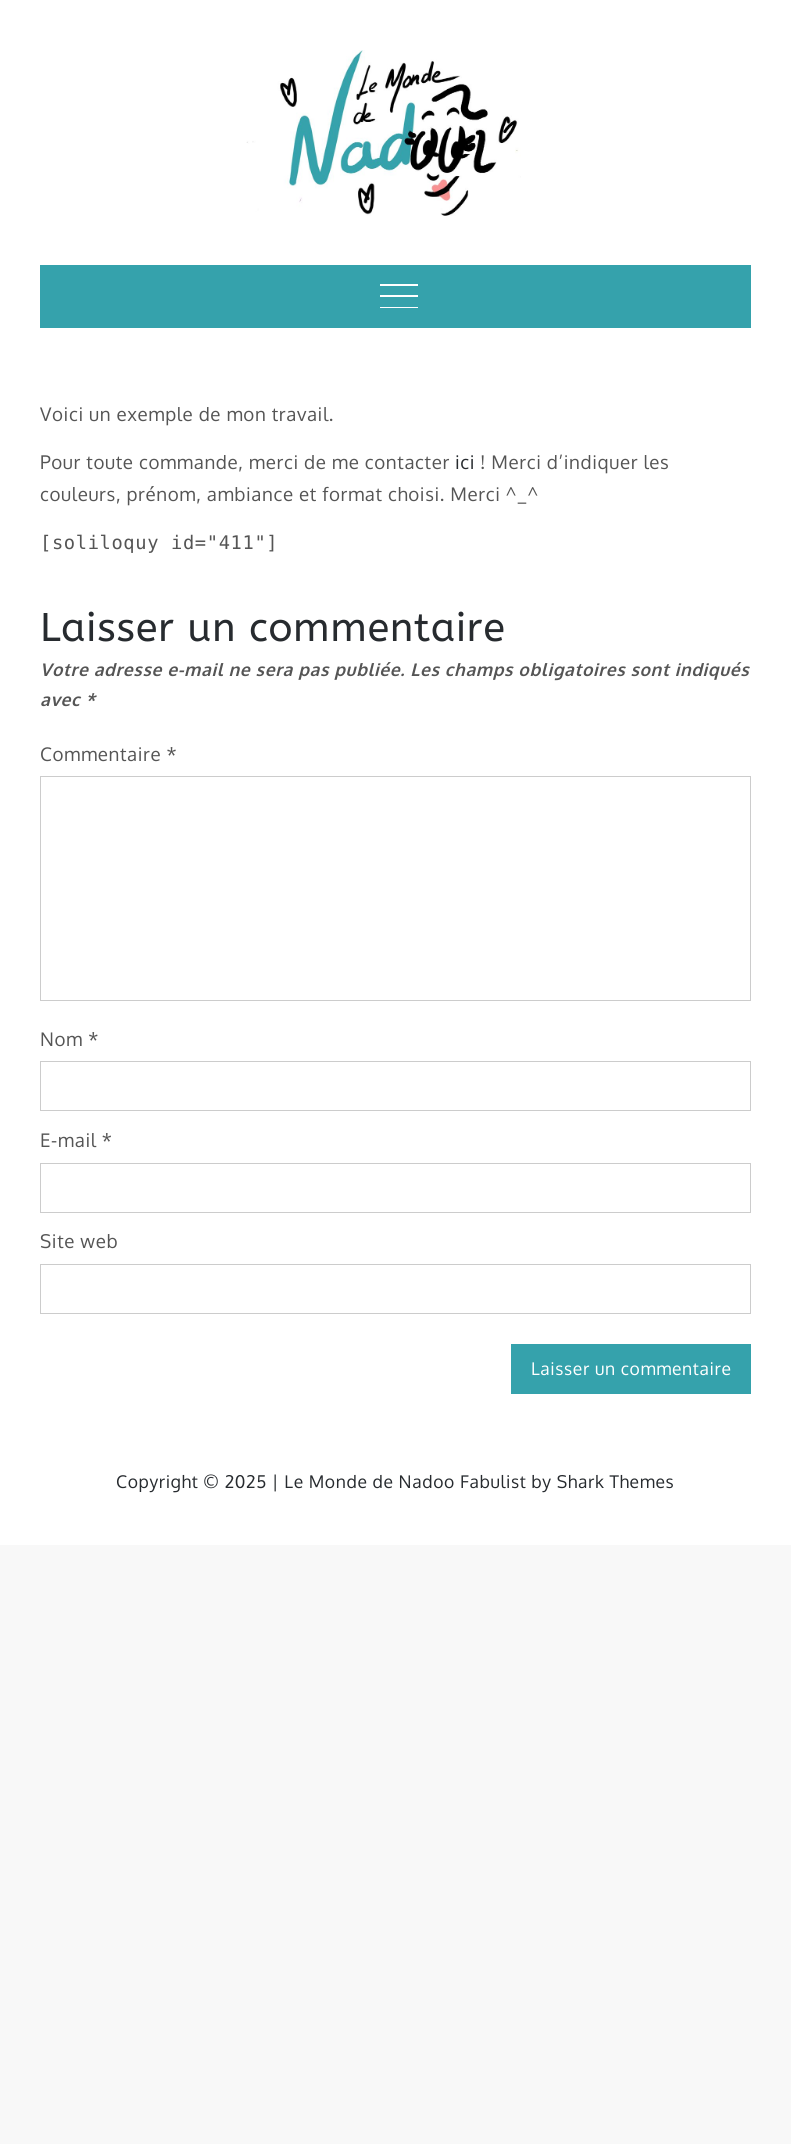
#include <cairo/cairo.h>
#include <math.h>
#include <stddef.h>

typedef struct { double x, y; const char *s; } line_t;
typedef struct { double x, y, w, h; unsigned color; } box_t;
static cairo_t *cr;

static void rgb(unsigned color)
{
	cairo_set_source_rgb(cr, (color >> 16) / 255.0, (color >> 8 & 255) / 255.0, (color & 255) / 255.0);
}

static void tracked(double x, double y, const char *s, double letter, double word)
{
	cairo_move_to(cr, x, y);
	while (*s) {
		char ch[5] = {0};
		int n = 0;
		do ch[n++] = *s++; while ((*s & 0xC0) == 0x80);
		cairo_show_text(cr, ch);
		cairo_rel_move_to(cr, letter + word * (*ch == ' '), 0);
	}
}

static void image(const char *path, double x, double y, double w, double h)
{
	cairo_surface_t *image = cairo_image_surface_create_from_png(path);
	cairo_save(cr);
	cairo_set_source_surface(cr, image, x, y);
	cairo_rectangle(cr, x, y, w, h);
	cairo_fill(cr);
	cairo_restore(cr);
	cairo_surface_destroy(image);
}

int main(void) {
	cairo_surface_t *surface = cairo_image_surface_create(CAIRO_FORMAT_RGB24, 791, 2144);
	cr = cairo_create(surface);
	cairo_font_options_t *options = cairo_font_options_create();
	cairo_font_options_set_hint_metrics(options, CAIRO_HINT_METRICS_OFF);
	cairo_font_options_set_hint_style(options, CAIRO_HINT_STYLE_NONE);
	cairo_set_font_options(cr, options);
	cairo_set_miter_limit(cr, 4);
	rgb(0xf8f8f8);
	cairo_paint(cr);
	rgb(0xffffff);
	cairo_rectangle(cr, 0, 0, 791, 1545);
	cairo_fill(cr);
	image("img/1.png", 246, 50, 275, 166);
	{
		static const box_t items[] = {
			{40, 265, 711, 63, 0x35a2ac},
			{380, 284, 38, 2, 0xffffff},
			{380, 295, 38, 2, 0xffffff},
			{380, 307, 38, 1, 0xffffff},
		};
		for (size_t i = 0; i < sizeof items / sizeof *items; i++) {
			rgb(items[i].color);
			cairo_rectangle(cr, items[i].x, items[i].y, items[i].w, items[i].h);
			cairo_fill(cr);
		}
	}
	cairo_rectangle(cr, 40.5, 776.5, 710, 224);
	rgb(0xcccccc);
	cairo_set_line_width(cr, 1);
	cairo_stroke(cr);
	cairo_rectangle(cr, 40.5, 1061.5, 710, 49);
	cairo_stroke(cr);
	cairo_rectangle(cr, 40.5, 1163.5, 710, 49);
	cairo_stroke(cr);
	cairo_rectangle(cr, 40.5, 1264.5, 710, 49);
	cairo_stroke(cr);
	rgb(0x35a2ac);
	cairo_rectangle(cr, 511, 1344, 240, 50);
	cairo_fill(cr);
	cairo_select_font_face(cr, "Oxygen", CAIRO_FONT_SLANT_NORMAL, CAIRO_FONT_WEIGHT_NORMAL);
	cairo_set_font_size(cr, 18.75);
	rgb(0x555555);
	tracked(40, 421, "Voici un exemple de mon travail.", 0.62, 0);
	tracked(40, 469, "Pour toute commande, merci de me contacter", 0.62, 0);
	rgb(0x272b2f);
	tracked(455, 469, "ici", 0.62, 0);
	rgb(0x555555);
	tracked(480, 469, "! Merci d’indiquer les", 0.62, 0);
	tracked(40, 501, "couleurs, prénom, ambiance et format choisi. Merci ^_^", 0.62, 0);
	cairo_select_font_face(cr, "DejaVu Sans Mono", CAIRO_FONT_SLANT_NORMAL, CAIRO_FONT_WEIGHT_NORMAL);
	tracked(40, 549, "[soliloquy id=\"411\"]", 0.62, 0);
	cairo_select_font_face(cr, "ABeeZee", CAIRO_FONT_SLANT_NORMAL, CAIRO_FONT_WEIGHT_NORMAL);
	cairo_set_font_size(cr, 40);
	rgb(0x272b2f);
	tracked(40, 641, "Laisser un commentaire", 0.62, 0);
	cairo_select_font_face(cr, "Oxygen", CAIRO_FONT_SLANT_ITALIC, CAIRO_FONT_WEIGHT_BOLD);
	cairo_set_font_size(cr, 17.5);
	rgb(0x555555);
	tracked(40, 676, "Votre adresse e-mail ne sera pas publiée. Les champs obligatoires sont indiqués", 0.62, 0);
	tracked(40, 706, "avec *", 0.62, 0);
	cairo_select_font_face(cr, "Oxygen", CAIRO_FONT_SLANT_NORMAL, CAIRO_FONT_WEIGHT_NORMAL);
	cairo_set_font_size(cr, 18.75);
	{
		static const line_t items[] = {
			{40, 761, "Commentaire *"},
			{40, 1046, "Nom *"},
			{40, 1147, "E-mail *"},
			{40, 1248, "Site web"},
		};
		for (size_t i = 0; i < sizeof items / sizeof *items; i++) {
			tracked(items[i].x, items[i].y, items[i].s, 0.62, 0);
		}
	}
	cairo_set_font_size(cr, 17.5);
	rgb(0xffffff);
	tracked(531, 1375, "Laisser un commentaire", 0.62, 0);
	rgb(0x272b2f);
	tracked(116, 1488, "Copyright © 2025 | Le Monde de Nadoo Fabulist by Shark Themes", 0.62, 0);
	cairo_surface_write_to_png(surface, "page.png");
	cairo_font_options_destroy(options);
	cairo_destroy(cr);
	cairo_surface_destroy(surface);
	return 0;
}
